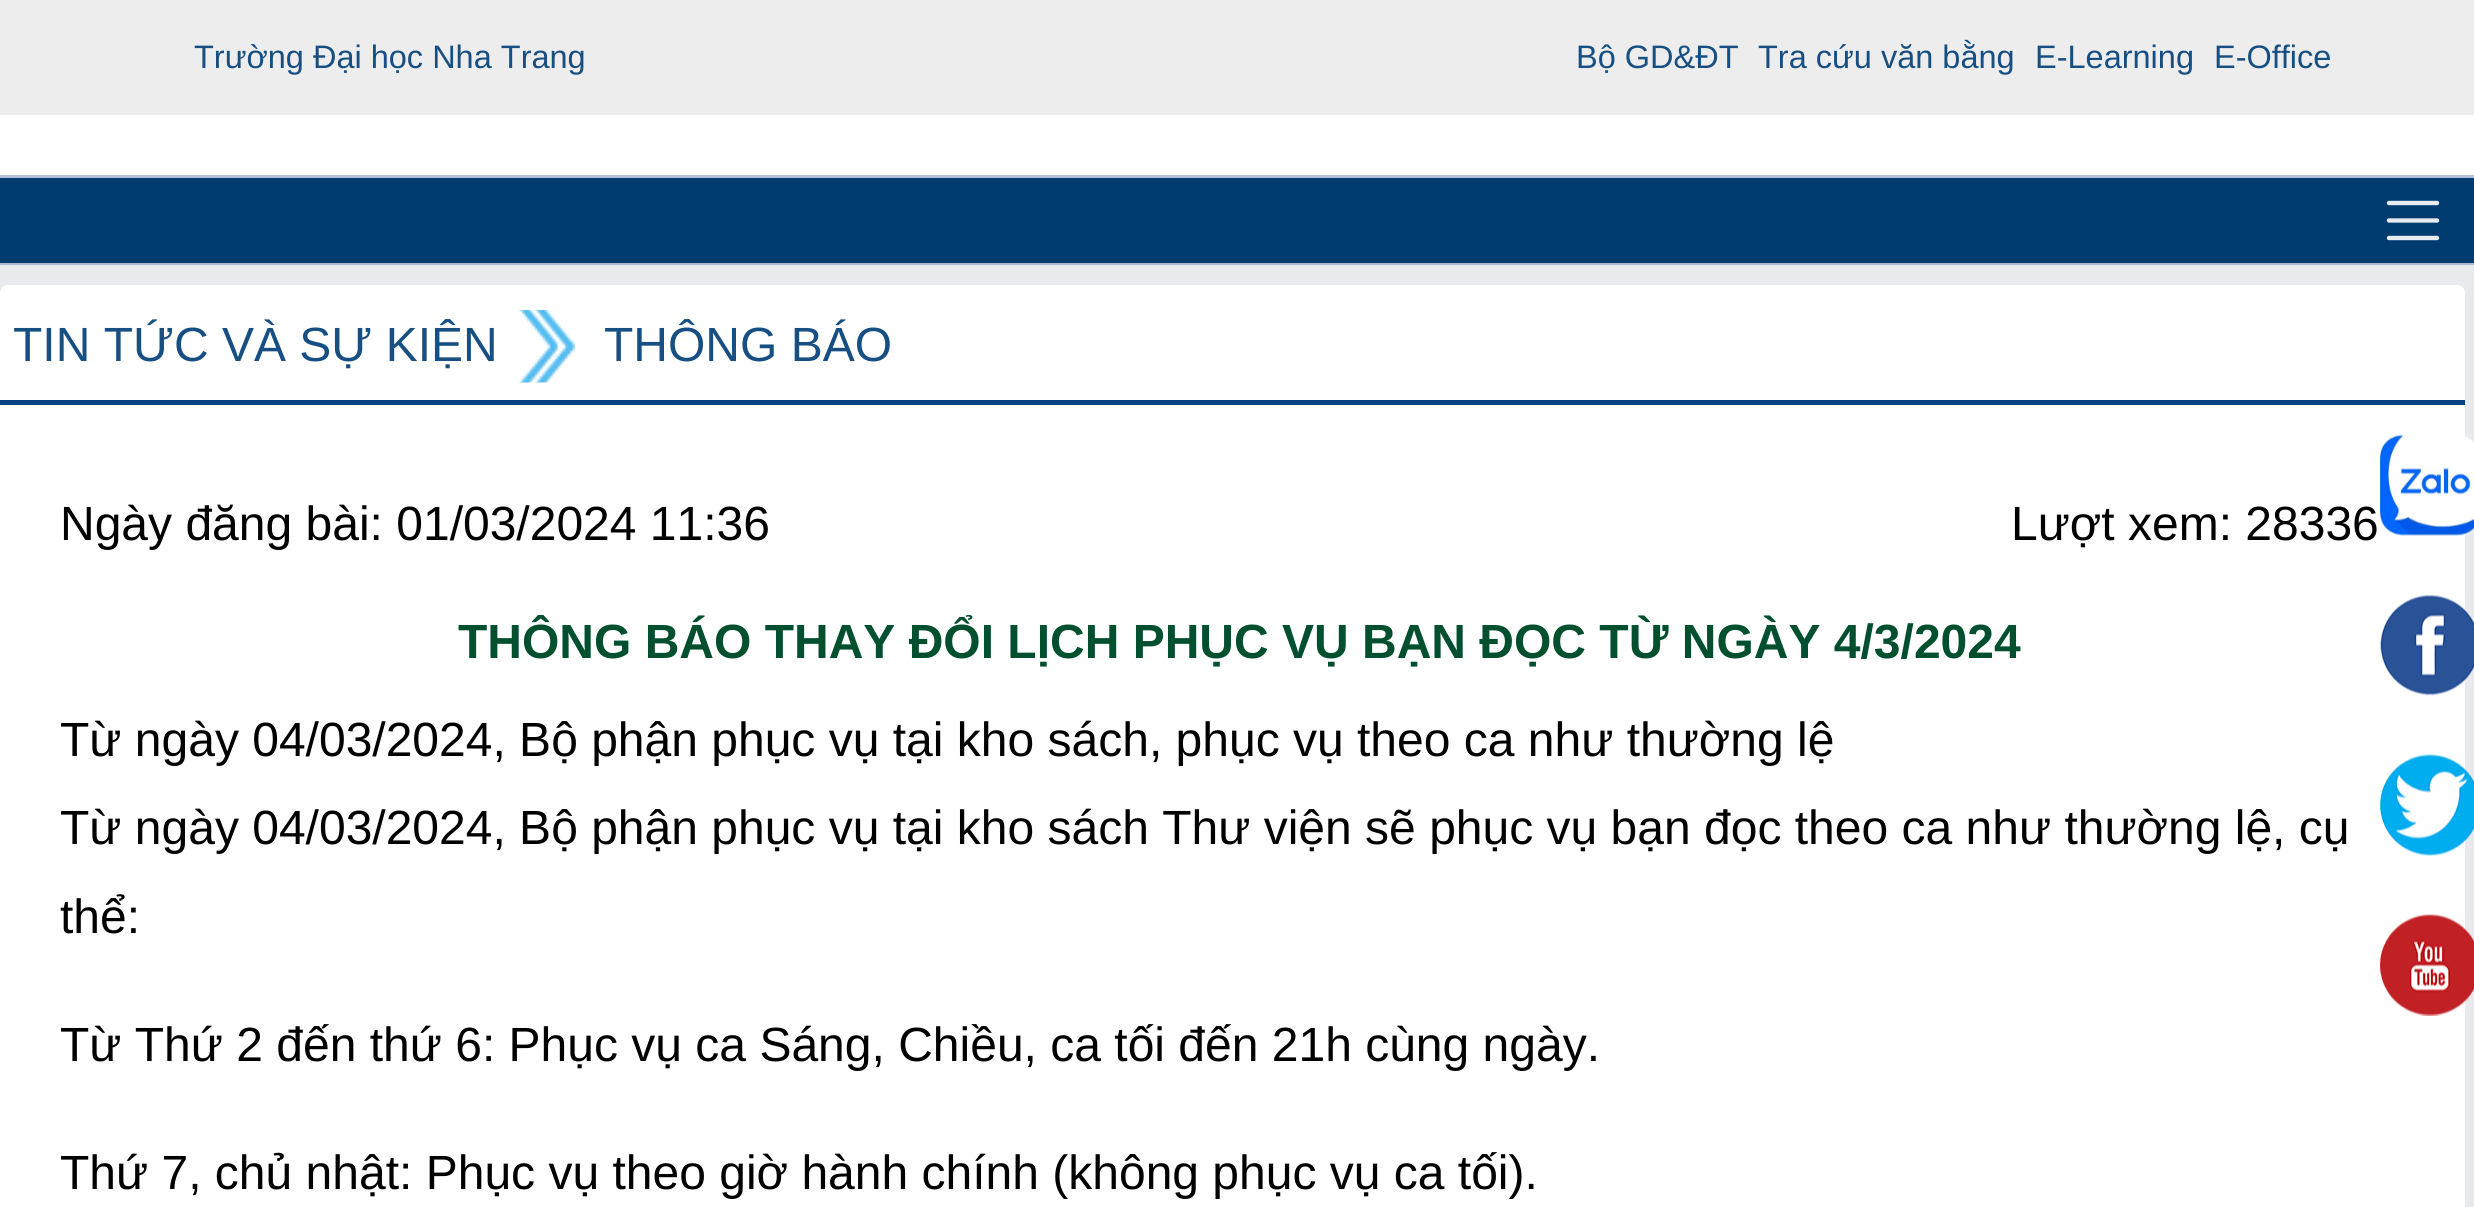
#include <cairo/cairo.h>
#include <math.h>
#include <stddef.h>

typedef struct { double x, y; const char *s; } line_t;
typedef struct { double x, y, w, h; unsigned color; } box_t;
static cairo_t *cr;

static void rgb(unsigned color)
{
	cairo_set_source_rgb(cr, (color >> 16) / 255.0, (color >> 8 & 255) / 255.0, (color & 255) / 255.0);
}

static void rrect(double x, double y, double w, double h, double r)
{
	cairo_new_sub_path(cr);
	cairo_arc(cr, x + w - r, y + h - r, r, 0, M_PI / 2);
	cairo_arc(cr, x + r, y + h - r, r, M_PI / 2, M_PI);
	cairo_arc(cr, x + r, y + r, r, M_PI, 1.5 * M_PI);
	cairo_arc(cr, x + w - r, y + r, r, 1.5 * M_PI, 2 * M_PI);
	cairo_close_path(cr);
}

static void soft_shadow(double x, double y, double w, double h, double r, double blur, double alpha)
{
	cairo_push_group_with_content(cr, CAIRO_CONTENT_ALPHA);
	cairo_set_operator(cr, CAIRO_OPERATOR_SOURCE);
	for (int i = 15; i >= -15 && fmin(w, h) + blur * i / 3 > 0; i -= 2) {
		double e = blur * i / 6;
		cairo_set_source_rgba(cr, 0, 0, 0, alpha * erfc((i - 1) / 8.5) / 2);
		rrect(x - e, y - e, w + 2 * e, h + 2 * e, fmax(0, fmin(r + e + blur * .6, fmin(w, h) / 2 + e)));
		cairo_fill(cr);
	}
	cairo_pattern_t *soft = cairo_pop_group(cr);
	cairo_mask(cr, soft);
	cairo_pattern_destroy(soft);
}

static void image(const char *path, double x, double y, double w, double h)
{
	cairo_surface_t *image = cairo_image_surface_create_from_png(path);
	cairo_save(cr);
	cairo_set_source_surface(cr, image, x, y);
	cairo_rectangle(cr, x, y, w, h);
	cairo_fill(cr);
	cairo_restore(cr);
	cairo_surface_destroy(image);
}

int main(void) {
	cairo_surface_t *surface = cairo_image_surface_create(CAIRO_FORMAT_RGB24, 2474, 1207);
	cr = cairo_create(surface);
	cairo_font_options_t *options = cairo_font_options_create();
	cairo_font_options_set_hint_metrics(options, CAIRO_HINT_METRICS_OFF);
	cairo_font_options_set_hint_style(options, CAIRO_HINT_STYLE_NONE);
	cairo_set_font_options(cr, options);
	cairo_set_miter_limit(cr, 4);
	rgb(0xffffff);
	cairo_paint(cr);
	{
		static const box_t items[] = {
			{0, 0, 2474, 115, 0xededed},
			{0, 175, 2474, 3, 0xb5c2d9},
			{0, 263, 2474, 2, 0xb5c2d9},
		};
		for (size_t i = 0; i < sizeof items / sizeof *items; i++) {
			rgb(items[i].color);
			cairo_rectangle(cr, items[i].x, items[i].y, items[i].w, items[i].h);
			cairo_fill(cr);
		}
	}
	rgb(0x000000);
	soft_shadow(0, 183, 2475, 85, 0, 5, 0.07);
	rgb(0x003c70);
	cairo_rectangle(cr, 0, 178, 2474, 85);
	cairo_fill(cr);
	cairo_new_path(cr);
	cairo_move_to(cr, 2389, 203);
	cairo_line_to(cr, 2437, 203);
	cairo_move_to(cr, 2389, 220.5);
	cairo_line_to(cr, 2437, 220.5);
	cairo_move_to(cr, 2389, 238);
	cairo_line_to(cr, 2437, 238);
	rgb(0xe6ecf1);
	cairo_set_line_width(cr, 4.4);
	cairo_set_line_cap(cr, CAIRO_LINE_CAP_ROUND);
	cairo_stroke(cr);
	rgb(0xe9eaed);
	cairo_rectangle(cr, 0, 265, 2474, 942);
	cairo_fill(cr);
	rgb(0xffffff);
	rrect(0, 285, 2465, 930, 8);
	cairo_fill(cr);
	rgb(0x004281);
	cairo_rectangle(cr, 0, 400, 2465, 5);
	cairo_fill(cr);
	image("img/1.png", 519, 310, 56, 73);
	image("img/2.png", 2380, 434, 94, 102);
	image("img/3.png", 2380, 594, 94, 102);
	image("img/4.png", 2380, 754, 94, 102);
	image("img/5.png", 2380, 914, 94, 102);
	cairo_select_font_face(cr, "Liberation Sans", CAIRO_FONT_SLANT_NORMAL, CAIRO_FONT_WEIGHT_NORMAL);
	cairo_set_font_size(cr, 32.5);
	rgb(0x174f82);
	{
		static const line_t items[] = {
			{194, 68, "Trường Đại học Nha Trang"},
			{1576, 68, "Bộ GD&ĐT"},
			{1758, 68, "Tra cứu văn bằng"},
			{2035, 68, "E-Learning"},
			{2214, 68, "E-Office"},
		};
		for (size_t i = 0; i < sizeof items / sizeof *items; i++) {
			cairo_move_to(cr, items[i].x, items[i].y);
			cairo_show_text(cr, items[i].s);
		}
	}
	cairo_set_font_size(cr, 48);
	cairo_move_to(cr, 13, 361);
	cairo_show_text(cr, "TIN TỨC VÀ SỰ KIỆN");
	cairo_move_to(cr, 604, 361);
	cairo_show_text(cr, "THÔNG BÁO");
	rgb(0x000000);
	cairo_move_to(cr, 60, 540);
	cairo_show_text(cr, "Ngày đăng bài: 01/03/2024 11:36");
	cairo_move_to(cr, 2011, 540);
	cairo_show_text(cr, "Lượt xem: 28336");
	cairo_select_font_face(cr, "Liberation Sans", CAIRO_FONT_SLANT_NORMAL, CAIRO_FONT_WEIGHT_BOLD);
	rgb(0x004f2e);
	cairo_move_to(cr, 458, 658);
	cairo_show_text(cr, "THÔNG BÁO THAY ĐỔI LỊCH PHỤC VỤ BẠN ĐỌC TỪ NGÀY 4/3/2024");
	cairo_select_font_face(cr, "Liberation Sans", CAIRO_FONT_SLANT_NORMAL, CAIRO_FONT_WEIGHT_NORMAL);
	rgb(0x000000);
	{
		static const line_t items[] = {
			{60, 756, "Từ ngày 04/03/2024, Bộ phận phục vụ tại kho sách, phục vụ theo ca như thường lệ"},
			{60, 844, "Từ ngày 04/03/2024, Bộ phận phục vụ tại kho sách Thư viện sẽ phục vụ bạn đọc theo ca như thường lệ, cụ"},
			{60, 933, "thể:"},
			{60, 1061, "Từ Thứ 2 đến thứ 6: Phục vụ ca Sáng, Chiều, ca tối đến 21h cùng ngày."},
			{60, 1189, "Thứ 7, chủ nhật: Phục vụ theo giờ hành chính (không phục vụ ca tối)."},
		};
		for (size_t i = 0; i < sizeof items / sizeof *items; i++) {
			cairo_move_to(cr, items[i].x, items[i].y);
			cairo_show_text(cr, items[i].s);
		}
	}
	cairo_surface_write_to_png(surface, "page.png");
	cairo_font_options_destroy(options);
	cairo_destroy(cr);
	cairo_surface_destroy(surface);
	return 0;
}
